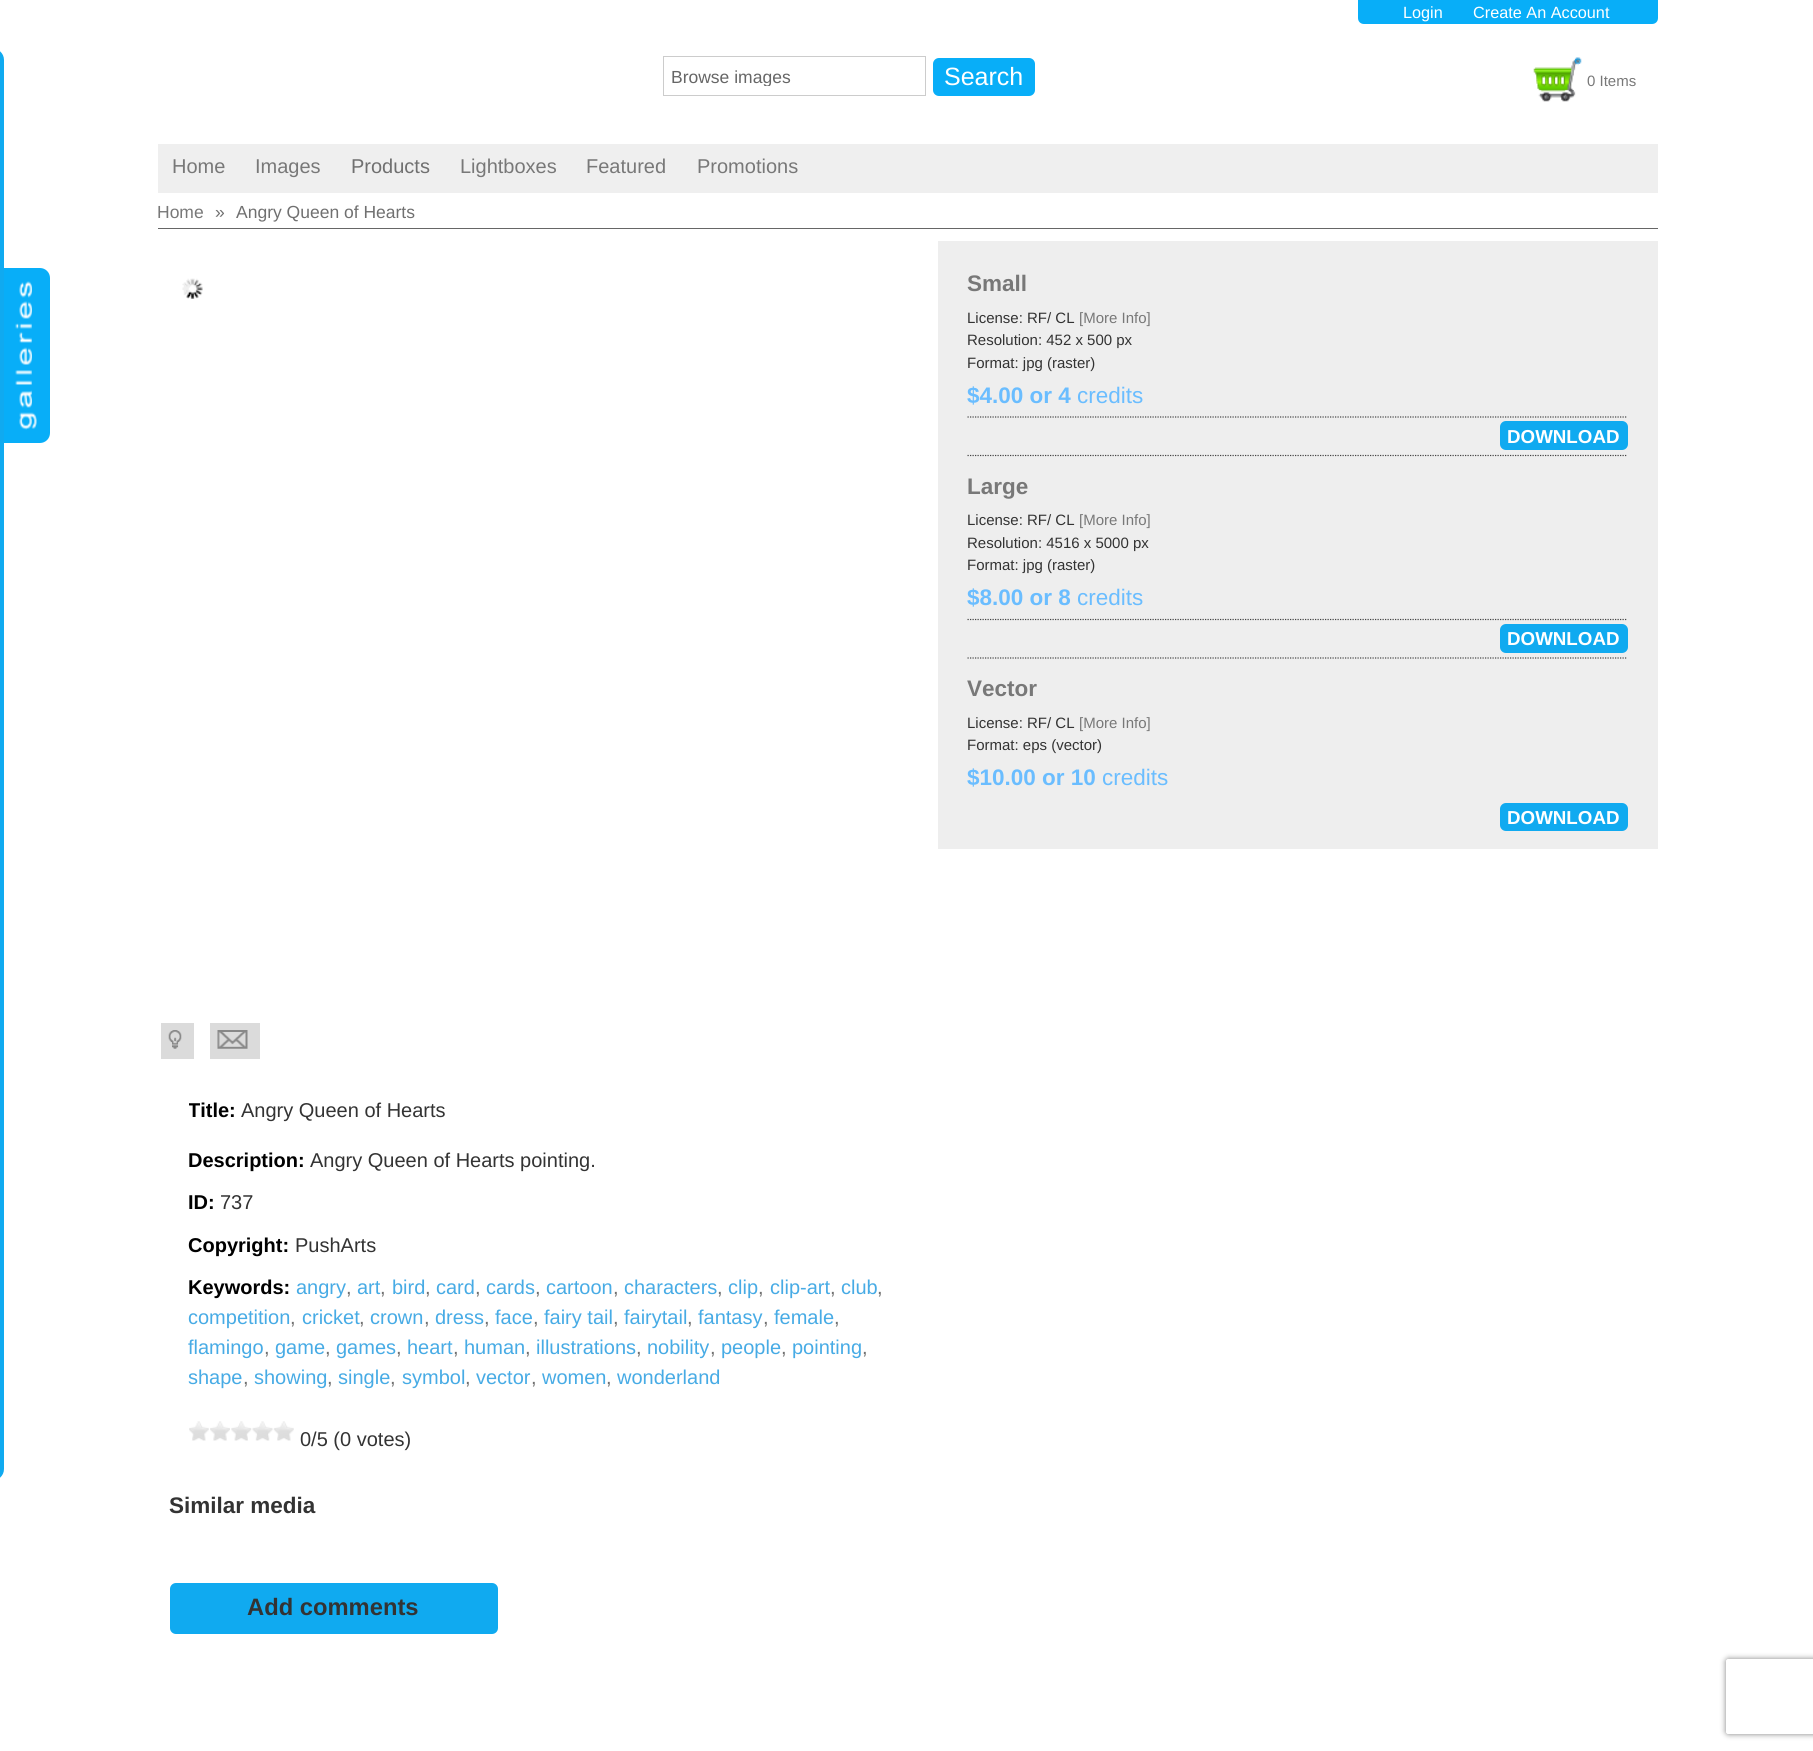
#include <cairo/cairo.h>
#include <math.h>
#include <stddef.h>

typedef struct { double x, y; const char *s; } line_t;
static cairo_t *cr;

static void rgb(unsigned color)
{
	cairo_set_source_rgb(cr, (color >> 16) / 255.0, (color >> 8 & 255) / 255.0, (color & 255) / 255.0);
}

static void rrect(double x, double y, double w, double h, double r)
{
	cairo_new_sub_path(cr);
	cairo_arc(cr, x + w - r, y + h - r, r, 0, M_PI / 2);
	cairo_arc(cr, x + r, y + h - r, r, M_PI / 2, M_PI);
	cairo_arc(cr, x + r, y + r, r, M_PI, 1.5 * M_PI);
	cairo_arc(cr, x + w - r, y + r, r, 1.5 * M_PI, 2 * M_PI);
	cairo_close_path(cr);
}

static void soft_shadow(double x, double y, double w, double h, double r, double blur, double alpha)
{
	cairo_push_group_with_content(cr, CAIRO_CONTENT_ALPHA);
	cairo_set_operator(cr, CAIRO_OPERATOR_SOURCE);
	for (int i = 15; i >= -15 && fmin(w, h) + blur * i / 3 > 0; i -= 2) {
		double e = blur * i / 6;
		cairo_set_source_rgba(cr, 0, 0, 0, alpha * erfc((i - 1) / 8.5) / 2);
		rrect(x - e, y - e, w + 2 * e, h + 2 * e, fmax(0, fmin(r + e + blur * .6, fmin(w, h) / 2 + e)));
		cairo_fill(cr);
	}
	cairo_pattern_t *soft = cairo_pop_group(cr);
	cairo_mask(cr, soft);
	cairo_pattern_destroy(soft);
}

static void image(const char *path, double x, double y, double w, double h)
{
	cairo_surface_t *image = cairo_image_surface_create_from_png(path);
	cairo_save(cr);
	cairo_set_source_surface(cr, image, x, y);
	cairo_rectangle(cr, x, y, w, h);
	cairo_fill(cr);
	cairo_restore(cr);
	cairo_surface_destroy(image);
}

int main(void) {
	cairo_surface_t *surface = cairo_image_surface_create(CAIRO_FORMAT_RGB24, 1813, 1751);
	cr = cairo_create(surface);
	cairo_font_options_t *options = cairo_font_options_create();
	cairo_font_options_set_hint_metrics(options, CAIRO_HINT_METRICS_OFF);
	cairo_font_options_set_hint_style(options, CAIRO_HINT_STYLE_NONE);
	cairo_set_font_options(cr, options);
	cairo_set_miter_limit(cr, 4);
	rgb(0xffffff);
	cairo_paint(cr);
	rgb(0x08aef8);
	cairo_new_path(cr);
	cairo_move_to(cr, 0, 268);
	cairo_line_to(cr, 40, 268);
	cairo_curve_to(cr, 45.5, 268, 50, 272.5, 50, 278);
	cairo_line_to(cr, 50, 433);
	cairo_curve_to(cr, 50, 438.5, 45.5, 443, 40, 443);
	cairo_line_to(cr, 0, 443);
	cairo_close_path(cr);
	cairo_fill(cr);
	image("img/1.png", 15, 281, 22, 149);
	rgb(0x10aaf0);
	cairo_set_fill_rule(cr, CAIRO_FILL_RULE_EVEN_ODD);
	cairo_new_path(cr);
	cairo_move_to(cr, -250, 48);
	cairo_line_to(cr, -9, 48);
	cairo_curve_to(cr, -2, 48, 4, 53, 4, 60);
	cairo_line_to(cr, 4, 1469);
	cairo_curve_to(cr, 4, 1476, -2, 1481, -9, 1481);
	cairo_line_to(cr, -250, 1481);
	cairo_close_path(cr);
	cairo_move_to(cr, -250, 51);
	cairo_line_to(cr, -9, 51);
	cairo_curve_to(cr, -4, 51, 0, 55, 0, 60);
	cairo_line_to(cr, 0, 1469);
	cairo_curve_to(cr, 0, 1474, -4, 1478, -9, 1478);
	cairo_line_to(cr, -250, 1478);
	cairo_close_path(cr);
	cairo_fill(cr);
	rgb(0xefefef);
	cairo_rectangle(cr, 158, 144, 1500, 49);
	cairo_fill(cr);
	rgb(0x08aef8);
	cairo_new_path(cr);
	cairo_move_to(cr, 1358, 0);
	cairo_line_to(cr, 1658, 0);
	cairo_line_to(cr, 1658, 18);
	cairo_curve_to(cr, 1658, 21.5, 1655.5, 24, 1652, 24);
	cairo_line_to(cr, 1364, 24);
	cairo_curve_to(cr, 1360.5, 24, 1358, 21.5, 1358, 18);
	cairo_close_path(cr);
	cairo_fill(cr);
	cairo_rectangle(cr, 663.5, 56.5, 262, 39);
	rgb(0xcccccc);
	cairo_set_line_width(cr, 1);
	cairo_stroke(cr);
	rgb(0x08aef8);
	rrect(933, 58, 102, 38, 6);
	cairo_fill(cr);
	image("img/2.png", 1533, 57, 49, 45);
	rgb(0x666666);
	cairo_rectangle(cr, 158, 228, 1500, 1);
	cairo_fill(cr);
	rgb(0xeeeeee);
	cairo_rectangle(cr, 938, 241, 720, 608);
	cairo_fill(cr);
	cairo_new_path(cr);
	cairo_move_to(cr, 967.5, 417);
	cairo_line_to(cr, 1627.5, 417);
	rgb(0x444444);
	cairo_set_line_width(cr, 1.2);
	cairo_set_dash(cr, (double[]){1.25, 1.25}, 2, 0);
	cairo_stroke(cr);
	cairo_new_path(cr);
	cairo_move_to(cr, 967.5, 455.5);
	cairo_line_to(cr, 1627.5, 455.5);
	cairo_stroke(cr);
	rgb(0x10aaf0);
	rrect(1500, 421, 128, 29, 6);
	cairo_fill(cr);
	cairo_new_path(cr);
	cairo_move_to(cr, 967.5, 619.5);
	cairo_line_to(cr, 1627.5, 619.5);
	rgb(0x444444);
	cairo_stroke(cr);
	cairo_new_path(cr);
	cairo_move_to(cr, 967.5, 658);
	cairo_line_to(cr, 1627.5, 658);
	cairo_stroke(cr);
	rgb(0x10aaf0);
	rrect(1500, 624, 128, 29, 6);
	cairo_fill(cr);
	rrect(1500, 803, 128, 28, 6);
	cairo_fill(cr);
	image("img/3.png", 182, 278, 21, 21);
	rgb(0xdbdbdb);
	cairo_rectangle(cr, 161, 1023, 33, 36);
	cairo_fill(cr);
	image("img/4.png", 168, 1030, 14, 19);
	cairo_rectangle(cr, 210, 1023, 50, 36);
	cairo_fill(cr);
	image("img/5.png", 217, 1030, 31, 19);
	image("img/6.png", 189, 1421, 20, 20);
	image("img/7.png", 210, 1421, 20, 20);
	image("img/8.png", 231, 1421, 21, 20);
	image("img/9.png", 252, 1421, 21, 20);
	image("img/10.png", 273, 1421, 21, 20);
	rgb(0x10aaf0);
	rrect(170, 1583, 328, 51, 6);
	cairo_fill(cr);
	cairo_save(cr);
	cairo_new_path(cr);
	cairo_move_to(cr, 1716, 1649);
	cairo_line_to(cr, 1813, 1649);
	cairo_line_to(cr, 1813, 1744);
	cairo_line_to(cr, 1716, 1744);
	cairo_close_path(cr);
	cairo_move_to(cr, 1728.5, 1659);
	cairo_line_to(cr, 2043.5, 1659);
	cairo_curve_to(cr, 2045, 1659, 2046, 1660, 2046, 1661.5);
	cairo_line_to(cr, 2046, 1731.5);
	cairo_curve_to(cr, 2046, 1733, 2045, 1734, 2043.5, 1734);
	cairo_line_to(cr, 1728.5, 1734);
	cairo_curve_to(cr, 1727, 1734, 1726, 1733, 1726, 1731.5);
	cairo_line_to(cr, 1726, 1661.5);
	cairo_curve_to(cr, 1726, 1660, 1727, 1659, 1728.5, 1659);
	cairo_close_path(cr);
	cairo_clip(cr);
	rgb(0x808080);
	soft_shadow(1726, 1659, 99, 75, 2.5, 3, 1);
	cairo_restore(cr);
	cairo_select_font_face(cr, "Liberation Sans", CAIRO_FONT_SLANT_NORMAL, CAIRO_FONT_WEIGHT_NORMAL);
	cairo_set_font_size(cr, 20);
	rgb(0x787878);
	cairo_move_to(cr, 172, 173);
	cairo_show_text(cr, "Home");
	cairo_move_to(cr, 255, 173);
	cairo_show_text(cr, "Images");
	rgb(0x707070);
	cairo_move_to(cr, 351, 173);
	cairo_show_text(cr, "Products");
	rgb(0x787878);
	{
		static const line_t items[] = {
			{460, 173, "Lightboxes"},
			{586, 173, "Featured"},
			{697, 173, "Promotions"},
		};
		for (size_t i = 0; i < sizeof items / sizeof *items; i++) {
			cairo_move_to(cr, items[i].x, items[i].y);
			cairo_show_text(cr, items[i].s);
		}
	}
	cairo_set_font_size(cr, 16.25);
	rgb(0xffffff);
	cairo_move_to(cr, 1403, 18);
	cairo_show_text(cr, "Login");
	cairo_move_to(cr, 1473, 18);
	cairo_show_text(cr, "Create An Account");
	cairo_save(cr);
	cairo_set_fill_rule(cr, CAIRO_FILL_RULE_WINDING);
	cairo_rectangle(cr, 671, 66, 250, 20);
	cairo_clip(cr);
	cairo_set_font_size(cr, 17.5);
	rgb(0x666666);
	cairo_move_to(cr, 671, 83);
	cairo_show_text(cr, "Browse images");
	cairo_restore(cr);
	cairo_set_font_size(cr, 25);
	cairo_move_to(cr, 944, 85);
	cairo_show_text(cr, "Search");
	cairo_set_font_size(cr, 15);
	rgb(0x787878);
	cairo_move_to(cr, 1587, 86);
	cairo_show_text(cr, "0 Items");
	cairo_set_font_size(cr, 17.5);
	cairo_move_to(cr, 157, 218);
	cairo_show_text(cr, "Home");
	rgb(0x707070);
	cairo_move_to(cr, 215, 218);
	cairo_show_text(cr, "»");
	cairo_move_to(cr, 236, 218);
	cairo_show_text(cr, "Angry Queen of Hearts");
	cairo_select_font_face(cr, "Liberation Sans", CAIRO_FONT_SLANT_NORMAL, CAIRO_FONT_WEIGHT_BOLD);
	cairo_set_font_size(cr, 22.5);
	rgb(0x787878);
	cairo_move_to(cr, 967, 291);
	cairo_show_text(cr, "Small");
	cairo_select_font_face(cr, "Liberation Sans", CAIRO_FONT_SLANT_NORMAL, CAIRO_FONT_WEIGHT_NORMAL);
	cairo_set_font_size(cr, 15);
	rgb(0x333333);
	cairo_move_to(cr, 967, 323);
	cairo_show_text(cr, "License: RF/ CL");
	rgb(0x787878);
	cairo_move_to(cr, 1079, 323);
	cairo_show_text(cr, "[More Info]");
	rgb(0x333333);
	cairo_move_to(cr, 967, 345);
	cairo_show_text(cr, "Resolution: 452 x 500 px");
	cairo_move_to(cr, 967, 368);
	cairo_show_text(cr, "Format: jpg (raster)");
	cairo_select_font_face(cr, "Liberation Sans", CAIRO_FONT_SLANT_NORMAL, CAIRO_FONT_WEIGHT_BOLD);
	cairo_set_font_size(cr, 22.5);
	rgb(0x6abdff);
	cairo_move_to(cr, 967, 403);
	cairo_show_text(cr, "$4.00 or 4");
	cairo_select_font_face(cr, "Liberation Sans", CAIRO_FONT_SLANT_NORMAL, CAIRO_FONT_WEIGHT_NORMAL);
	cairo_move_to(cr, 1077, 403);
	cairo_show_text(cr, "credits");
	cairo_select_font_face(cr, "Liberation Sans", CAIRO_FONT_SLANT_NORMAL, CAIRO_FONT_WEIGHT_BOLD);
	cairo_set_font_size(cr, 18.75);
	rgb(0xffffff);
	cairo_move_to(cr, 1507, 443);
	cairo_show_text(cr, "DOWNLOAD");
	cairo_set_font_size(cr, 22.5);
	rgb(0x787878);
	cairo_move_to(cr, 967, 494);
	cairo_show_text(cr, "Large");
	cairo_select_font_face(cr, "Liberation Sans", CAIRO_FONT_SLANT_NORMAL, CAIRO_FONT_WEIGHT_NORMAL);
	cairo_set_font_size(cr, 15);
	rgb(0x333333);
	cairo_move_to(cr, 967, 525);
	cairo_show_text(cr, "License: RF/ CL");
	rgb(0x787878);
	cairo_move_to(cr, 1079, 525);
	cairo_show_text(cr, "[More Info]");
	rgb(0x333333);
	cairo_move_to(cr, 967, 548);
	cairo_show_text(cr, "Resolution: 4516 x 5000 px");
	cairo_move_to(cr, 967, 570);
	cairo_show_text(cr, "Format: jpg (raster)");
	cairo_select_font_face(cr, "Liberation Sans", CAIRO_FONT_SLANT_NORMAL, CAIRO_FONT_WEIGHT_BOLD);
	cairo_set_font_size(cr, 22.5);
	rgb(0x6abdff);
	cairo_move_to(cr, 967, 605);
	cairo_show_text(cr, "$8.00 or 8");
	cairo_select_font_face(cr, "Liberation Sans", CAIRO_FONT_SLANT_NORMAL, CAIRO_FONT_WEIGHT_NORMAL);
	cairo_move_to(cr, 1077, 605);
	cairo_show_text(cr, "credits");
	cairo_select_font_face(cr, "Liberation Sans", CAIRO_FONT_SLANT_NORMAL, CAIRO_FONT_WEIGHT_BOLD);
	cairo_set_font_size(cr, 18.75);
	rgb(0xffffff);
	cairo_move_to(cr, 1507, 645);
	cairo_show_text(cr, "DOWNLOAD");
	cairo_set_font_size(cr, 22.5);
	rgb(0x787878);
	cairo_move_to(cr, 967, 696);
	cairo_show_text(cr, "Vector");
	cairo_select_font_face(cr, "Liberation Sans", CAIRO_FONT_SLANT_NORMAL, CAIRO_FONT_WEIGHT_NORMAL);
	cairo_set_font_size(cr, 15);
	rgb(0x333333);
	cairo_move_to(cr, 967, 728);
	cairo_show_text(cr, "License: RF/ CL");
	rgb(0x787878);
	cairo_move_to(cr, 1079, 728);
	cairo_show_text(cr, "[More Info]");
	rgb(0x333333);
	cairo_move_to(cr, 967, 750);
	cairo_show_text(cr, "Format: eps (vector)");
	cairo_select_font_face(cr, "Liberation Sans", CAIRO_FONT_SLANT_NORMAL, CAIRO_FONT_WEIGHT_BOLD);
	cairo_set_font_size(cr, 22.5);
	rgb(0x6abdff);
	cairo_move_to(cr, 967, 785);
	cairo_show_text(cr, "$10.00 or 10");
	cairo_select_font_face(cr, "Liberation Sans", CAIRO_FONT_SLANT_NORMAL, CAIRO_FONT_WEIGHT_NORMAL);
	cairo_move_to(cr, 1102, 785);
	cairo_show_text(cr, "credits");
	cairo_select_font_face(cr, "Liberation Sans", CAIRO_FONT_SLANT_NORMAL, CAIRO_FONT_WEIGHT_BOLD);
	cairo_set_font_size(cr, 18.75);
	rgb(0xffffff);
	cairo_move_to(cr, 1507, 824);
	cairo_show_text(cr, "DOWNLOAD");
	cairo_save(cr);
	cairo_set_fill_rule(cr, CAIRO_FILL_RULE_WINDING);
	cairo_rectangle(cr, 189, 1096, 719, 38);
	cairo_clip(cr);
	cairo_set_font_size(cr, 20);
	rgb(0x000000);
	cairo_move_to(cr, 188, 1117);
	cairo_show_text(cr, "Title:");
	cairo_restore(cr);
	cairo_select_font_face(cr, "Liberation Sans", CAIRO_FONT_SLANT_NORMAL, CAIRO_FONT_WEIGHT_NORMAL);
	cairo_set_font_size(cr, 20);
	rgb(0x333333);
	cairo_move_to(cr, 241, 1117);
	cairo_show_text(cr, "Angry Queen of Hearts");
	cairo_select_font_face(cr, "Liberation Sans", CAIRO_FONT_SLANT_NORMAL, CAIRO_FONT_WEIGHT_BOLD);
	rgb(0x000000);
	cairo_move_to(cr, 188, 1167);
	cairo_show_text(cr, "Description:");
	cairo_select_font_face(cr, "Liberation Sans", CAIRO_FONT_SLANT_NORMAL, CAIRO_FONT_WEIGHT_NORMAL);
	rgb(0x333333);
	cairo_move_to(cr, 310, 1167);
	cairo_show_text(cr, "Angry Queen of Hearts pointing.");
	cairo_select_font_face(cr, "Liberation Sans", CAIRO_FONT_SLANT_NORMAL, CAIRO_FONT_WEIGHT_BOLD);
	rgb(0x000000);
	cairo_move_to(cr, 188, 1209);
	cairo_show_text(cr, "ID:");
	cairo_select_font_face(cr, "Liberation Sans", CAIRO_FONT_SLANT_NORMAL, CAIRO_FONT_WEIGHT_NORMAL);
	rgb(0x333333);
	cairo_move_to(cr, 220, 1209);
	cairo_show_text(cr, "737");
	cairo_select_font_face(cr, "Liberation Sans", CAIRO_FONT_SLANT_NORMAL, CAIRO_FONT_WEIGHT_BOLD);
	rgb(0x000000);
	cairo_move_to(cr, 188, 1252);
	cairo_show_text(cr, "Copyright:");
	cairo_select_font_face(cr, "Liberation Sans", CAIRO_FONT_SLANT_NORMAL, CAIRO_FONT_WEIGHT_NORMAL);
	rgb(0x333333);
	cairo_move_to(cr, 295, 1252);
	cairo_show_text(cr, "PushArts");
	cairo_select_font_face(cr, "Liberation Sans", CAIRO_FONT_SLANT_NORMAL, CAIRO_FONT_WEIGHT_BOLD);
	rgb(0x000000);
	cairo_move_to(cr, 188, 1294);
	cairo_show_text(cr, "Keywords:");
	cairo_select_font_face(cr, "Liberation Sans", CAIRO_FONT_SLANT_NORMAL, CAIRO_FONT_WEIGHT_NORMAL);
	rgb(0x47abe5);
	cairo_move_to(cr, 296, 1294);
	cairo_show_text(cr, "angry");
	rgb(0x707070);
	cairo_move_to(cr, 346, 1294);
	cairo_show_text(cr, ",");
	rgb(0x47abe5);
	cairo_move_to(cr, 357, 1294);
	cairo_show_text(cr, "art");
	rgb(0x707070);
	cairo_move_to(cr, 380, 1294);
	cairo_show_text(cr, ",");
	rgb(0x47abe5);
	cairo_move_to(cr, 392, 1294);
	cairo_show_text(cr, "bird");
	rgb(0x707070);
	cairo_move_to(cr, 425, 1294);
	cairo_show_text(cr, ",");
	rgb(0x47abe5);
	cairo_move_to(cr, 436, 1294);
	cairo_show_text(cr, "card");
	rgb(0x707070);
	cairo_move_to(cr, 475, 1294);
	cairo_show_text(cr, ",");
	rgb(0x47abe5);
	cairo_move_to(cr, 486, 1294);
	cairo_show_text(cr, "cards");
	rgb(0x707070);
	cairo_move_to(cr, 535, 1294);
	cairo_show_text(cr, ",");
	rgb(0x47abe5);
	cairo_move_to(cr, 546, 1294);
	cairo_show_text(cr, "cartoon");
	rgb(0x707070);
	cairo_move_to(cr, 613, 1294);
	cairo_show_text(cr, ",");
	rgb(0x47abe5);
	cairo_move_to(cr, 624, 1294);
	cairo_show_text(cr, "characters");
	rgb(0x707070);
	cairo_move_to(cr, 717, 1294);
	cairo_show_text(cr, ",");
	rgb(0x47abe5);
	cairo_move_to(cr, 728, 1294);
	cairo_show_text(cr, "clip");
	rgb(0x707070);
	cairo_move_to(cr, 758, 1294);
	cairo_show_text(cr, ",");
	rgb(0x47abe5);
	cairo_move_to(cr, 770, 1294);
	cairo_show_text(cr, "clip-art");
	rgb(0x707070);
	cairo_move_to(cr, 830, 1294);
	cairo_show_text(cr, ",");
	rgb(0x47abe5);
	cairo_move_to(cr, 841, 1294);
	cairo_show_text(cr, "club");
	rgb(0x707070);
	cairo_move_to(cr, 877, 1294);
	cairo_show_text(cr, ",");
	rgb(0x47abe5);
	cairo_move_to(cr, 188, 1324);
	cairo_show_text(cr, "competition");
	rgb(0x707070);
	cairo_move_to(cr, 290, 1324);
	cairo_show_text(cr, ",");
	rgb(0x47abe5);
	cairo_move_to(cr, 302, 1324);
	cairo_show_text(cr, "cricket");
	rgb(0x707070);
	cairo_move_to(cr, 359, 1324);
	cairo_show_text(cr, ",");
	rgb(0x47abe5);
	cairo_move_to(cr, 370, 1324);
	cairo_show_text(cr, "crown");
	rgb(0x707070);
	cairo_move_to(cr, 424, 1324);
	cairo_show_text(cr, ",");
	rgb(0x47abe5);
	cairo_move_to(cr, 435, 1324);
	cairo_show_text(cr, "dress");
	rgb(0x707070);
	cairo_move_to(cr, 484, 1324);
	cairo_show_text(cr, ",");
	rgb(0x47abe5);
	cairo_move_to(cr, 495, 1324);
	cairo_show_text(cr, "face");
	rgb(0x707070);
	cairo_move_to(cr, 533, 1324);
	cairo_show_text(cr, ",");
	rgb(0x47abe5);
	cairo_move_to(cr, 544, 1324);
	cairo_show_text(cr, "fairy tail");
	rgb(0x707070);
	cairo_move_to(cr, 613, 1324);
	cairo_show_text(cr, ",");
	rgb(0x47abe5);
	cairo_move_to(cr, 624, 1324);
	cairo_show_text(cr, "fairytail");
	rgb(0x707070);
	cairo_move_to(cr, 687, 1324);
	cairo_show_text(cr, ",");
	rgb(0x47abe5);
	cairo_move_to(cr, 698, 1324);
	cairo_show_text(cr, "fantasy");
	rgb(0x707070);
	cairo_move_to(cr, 763, 1324);
	cairo_show_text(cr, ",");
	rgb(0x47abe5);
	cairo_move_to(cr, 774, 1324);
	cairo_show_text(cr, "female");
	rgb(0x707070);
	cairo_move_to(cr, 834, 1324);
	cairo_show_text(cr, ",");
	rgb(0x47abe5);
	cairo_move_to(cr, 188, 1354);
	cairo_show_text(cr, "flamingo");
	rgb(0x707070);
	cairo_move_to(cr, 264, 1354);
	cairo_show_text(cr, ",");
	rgb(0x47abe5);
	cairo_move_to(cr, 275, 1354);
	cairo_show_text(cr, "game");
	rgb(0x707070);
	cairo_move_to(cr, 325, 1354);
	cairo_show_text(cr, ",");
	rgb(0x47abe5);
	cairo_move_to(cr, 336, 1354);
	cairo_show_text(cr, "games");
	rgb(0x707070);
	cairo_move_to(cr, 396, 1354);
	cairo_show_text(cr, ",");
	rgb(0x47abe5);
	cairo_move_to(cr, 407, 1354);
	cairo_show_text(cr, "heart");
	rgb(0x707070);
	cairo_move_to(cr, 453, 1354);
	cairo_show_text(cr, ",");
	rgb(0x47abe5);
	cairo_move_to(cr, 464, 1354);
	cairo_show_text(cr, "human");
	rgb(0x707070);
	cairo_move_to(cr, 525, 1354);
	cairo_show_text(cr, ",");
	rgb(0x47abe5);
	cairo_move_to(cr, 536, 1354);
	cairo_show_text(cr, "illustrations");
	rgb(0x707070);
	cairo_move_to(cr, 636, 1354);
	cairo_show_text(cr, ",");
	rgb(0x47abe5);
	cairo_move_to(cr, 647, 1354);
	cairo_show_text(cr, "nobility");
	rgb(0x707070);
	cairo_move_to(cr, 710, 1354);
	cairo_show_text(cr, ",");
	rgb(0x47abe5);
	cairo_move_to(cr, 721, 1354);
	cairo_show_text(cr, "people");
	rgb(0x707070);
	cairo_move_to(cr, 781, 1354);
	cairo_show_text(cr, ",");
	rgb(0x47abe5);
	cairo_move_to(cr, 792, 1354);
	cairo_show_text(cr, "pointing");
	rgb(0x707070);
	cairo_move_to(cr, 862, 1354);
	cairo_show_text(cr, ",");
	rgb(0x47abe5);
	cairo_move_to(cr, 188, 1384);
	cairo_show_text(cr, "shape");
	rgb(0x707070);
	cairo_move_to(cr, 243, 1384);
	cairo_show_text(cr, ",");
	rgb(0x47abe5);
	cairo_move_to(cr, 254, 1384);
	cairo_show_text(cr, "showing");
	rgb(0x707070);
	cairo_move_to(cr, 327, 1384);
	cairo_show_text(cr, ",");
	rgb(0x47abe5);
	cairo_move_to(cr, 338, 1384);
	cairo_show_text(cr, "single");
	rgb(0x707070);
	cairo_move_to(cr, 390, 1384);
	cairo_show_text(cr, ",");
	rgb(0x47abe5);
	cairo_move_to(cr, 402, 1384);
	cairo_show_text(cr, "symbol");
	rgb(0x707070);
	cairo_move_to(cr, 465, 1384);
	cairo_show_text(cr, ",");
	rgb(0x47abe5);
	cairo_move_to(cr, 476, 1384);
	cairo_show_text(cr, "vector");
	rgb(0x707070);
	cairo_move_to(cr, 531, 1384);
	cairo_show_text(cr, ",");
	rgb(0x47abe5);
	cairo_move_to(cr, 542, 1384);
	cairo_show_text(cr, "women");
	rgb(0x707070);
	cairo_move_to(cr, 606, 1384);
	cairo_show_text(cr, ",");
	rgb(0x47abe5);
	cairo_move_to(cr, 617, 1384);
	cairo_show_text(cr, "wonderland");
	rgb(0x333333);
	cairo_move_to(cr, 300, 1446);
	cairo_show_text(cr, "0/5 (0 votes)");
	cairo_select_font_face(cr, "Liberation Sans", CAIRO_FONT_SLANT_NORMAL, CAIRO_FONT_WEIGHT_BOLD);
	cairo_set_font_size(cr, 22.5);
	cairo_move_to(cr, 169, 1513);
	cairo_show_text(cr, "Similar media");
	cairo_set_font_size(cr, 23.75);
	cairo_move_to(cr, 247, 1615);
	cairo_show_text(cr, "Add comments");
	cairo_surface_write_to_png(surface, "page.png");
	cairo_font_options_destroy(options);
	cairo_destroy(cr);
	cairo_surface_destroy(surface);
	return 0;
}
